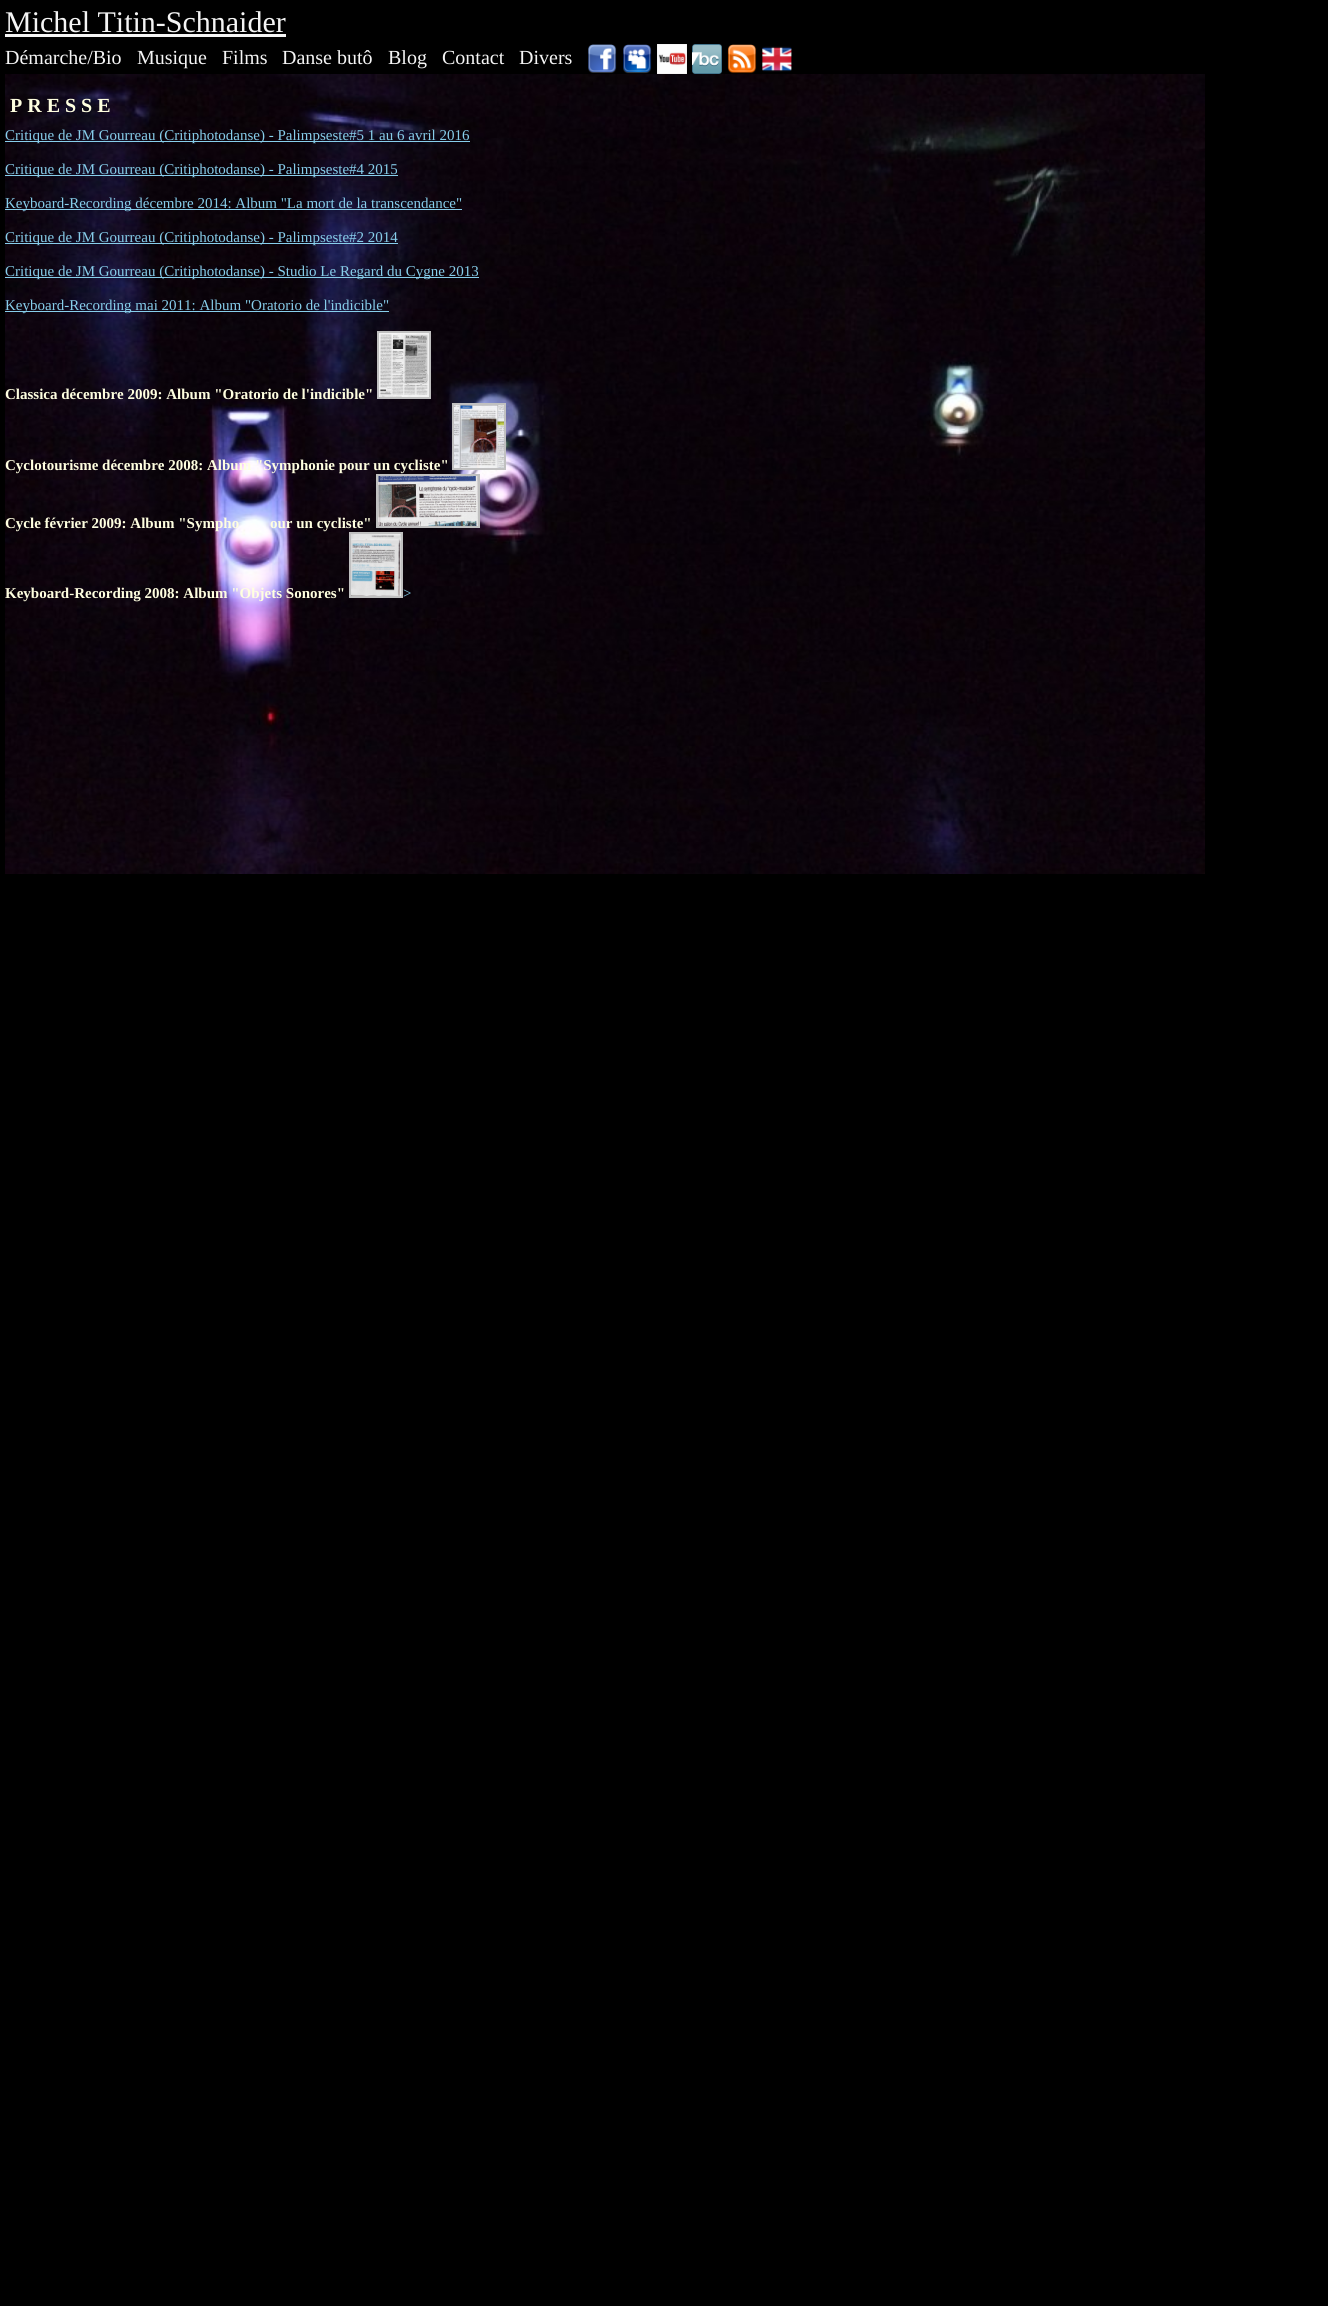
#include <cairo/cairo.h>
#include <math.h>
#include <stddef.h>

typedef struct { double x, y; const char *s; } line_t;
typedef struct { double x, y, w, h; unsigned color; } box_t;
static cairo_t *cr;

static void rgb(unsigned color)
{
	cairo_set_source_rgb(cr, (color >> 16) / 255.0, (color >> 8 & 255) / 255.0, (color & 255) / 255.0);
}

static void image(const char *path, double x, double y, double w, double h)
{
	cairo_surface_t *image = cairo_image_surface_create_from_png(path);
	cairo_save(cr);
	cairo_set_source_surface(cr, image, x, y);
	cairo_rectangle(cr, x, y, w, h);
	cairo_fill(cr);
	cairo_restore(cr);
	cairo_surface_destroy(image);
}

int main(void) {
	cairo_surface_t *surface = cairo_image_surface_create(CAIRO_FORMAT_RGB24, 1328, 2306);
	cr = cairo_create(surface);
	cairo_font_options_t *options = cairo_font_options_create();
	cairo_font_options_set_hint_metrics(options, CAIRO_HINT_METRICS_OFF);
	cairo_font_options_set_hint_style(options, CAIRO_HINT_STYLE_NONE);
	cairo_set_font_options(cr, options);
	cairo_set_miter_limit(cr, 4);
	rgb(0x000000);
	cairo_paint(cr);
	rgb(0xf5f5f5);
	cairo_rectangle(cr, 5, 34, 281, 3);
	cairo_fill(cr);
	image("img/1.png", 588, 44, 29, 29);
	image("img/2.png", 623, 44, 29, 30);
	image("img/3.png", 657, 44, 30, 30);
	image("img/4.png", 692, 44, 30, 30);
	image("img/5.png", 727, 44, 30, 30);
	image("img/6.png", 762, 46, 30, 26);
	image("img/7.png", 5, 74, 1200, 800);
	{
		static const box_t items[] = {
			{5, 141, 465, 1, 0x87ceeb},
			{5, 175, 393, 1, 0x87ceeb},
			{5, 209, 457, 1, 0x87ceeb},
			{5, 243, 393, 1, 0x87ceeb},
			{5, 277, 474, 1, 0x87ceeb},
			{5, 311, 384, 1, 0x87ceeb},
		};
		for (size_t i = 0; i < sizeof items / sizeof *items; i++) {
			rgb(items[i].color);
			cairo_rectangle(cr, items[i].x, items[i].y, items[i].w, items[i].h);
			cairo_fill(cr);
		}
	}
	cairo_rectangle(cr, 378, 332, 52, 66);
	rgb(0xc0c0c0);
	cairo_stroke(cr);
	image("img/8.png", 379, 333, 50, 64);
	cairo_rectangle(cr, 453, 404, 52, 65);
	cairo_stroke(cr);
	image("img/9.png", 454, 405, 50, 63);
	cairo_rectangle(cr, 377, 475, 102, 52);
	cairo_stroke(cr);
	image("img/10.png", 378, 476, 100, 50);
	cairo_rectangle(cr, 350, 533, 52, 64);
	cairo_stroke(cr);
	image("img/11.png", 351, 534, 50, 62);
	cairo_select_font_face(cr, "Liberation Serif", CAIRO_FONT_SLANT_NORMAL, CAIRO_FONT_WEIGHT_NORMAL);
	cairo_set_font_size(cr, 30);
	rgb(0xf5f5f5);
	cairo_move_to(cr, 5, 32);
	cairo_show_text(cr, "Michel Titin-Schnaider");
	cairo_set_font_size(cr, 20);
	{
		static const line_t items[] = {
			{5, 64, "Démarche/Bio"},
			{137, 64, "Musique"},
			{222, 64, "Films"},
			{282, 64, "Danse butô"},
			{388, 64, "Blog"},
			{442, 64, "Contact"},
			{519, 64, "Divers"},
		};
		for (size_t i = 0; i < sizeof items / sizeof *items; i++) {
			cairo_move_to(cr, items[i].x, items[i].y);
			cairo_show_text(cr, items[i].s);
		}
	}
	cairo_select_font_face(cr, "Liberation Serif", CAIRO_FONT_SLANT_NORMAL, CAIRO_FONT_WEIGHT_BOLD);
	rgb(0xffffe0);
	cairo_move_to(cr, 10, 112);
	cairo_show_text(cr, "P R E S S E");
	cairo_select_font_face(cr, "Liberation Serif", CAIRO_FONT_SLANT_NORMAL, CAIRO_FONT_WEIGHT_NORMAL);
	cairo_set_font_size(cr, 15);
	rgb(0x87ceeb);
	{
		static const line_t items[] = {
			{5, 140, "Critique de JM Gourreau (Critiphotodanse) - Palimpseste#5 1 au 6 avril 2016"},
			{5, 174, "Critique de JM Gourreau (Critiphotodanse) - Palimpseste#4 2015"},
			{5, 208, "Keyboard-Recording décembre 2014: Album \"La mort de la transcendance\""},
			{5, 242, "Critique de JM Gourreau (Critiphotodanse) - Palimpseste#2 2014"},
			{5, 276, "Critique de JM Gourreau (Critiphotodanse) - Studio Le Regard du Cygne 2013"},
			{5, 310, "Keyboard-Recording mai 2011: Album \"Oratorio de l'indicible\""},
		};
		for (size_t i = 0; i < sizeof items / sizeof *items; i++) {
			cairo_move_to(cr, items[i].x, items[i].y);
			cairo_show_text(cr, items[i].s);
		}
	}
	cairo_select_font_face(cr, "Liberation Serif", CAIRO_FONT_SLANT_NORMAL, CAIRO_FONT_WEIGHT_BOLD);
	rgb(0xffffe0);
	{
		static const line_t items[] = {
			{5, 399, "Classica décembre 2009: Album \"Oratorio de l'indicible\""},
			{5, 470, "Cyclotourisme décembre 2008: Album \"Symphonie pour un cycliste\""},
			{5, 528, "Cycle février 2009: Album \"Sympho"},
			{270, 528, "our un cycliste\""},
			{5, 598, "Keyboard-Recording 2008: Album \"Objets Sonores\""},
		};
		for (size_t i = 0; i < sizeof items / sizeof *items; i++) {
			cairo_move_to(cr, items[i].x, items[i].y);
			cairo_show_text(cr, items[i].s);
		}
	}
	cairo_select_font_face(cr, "Liberation Serif", CAIRO_FONT_SLANT_NORMAL, CAIRO_FONT_WEIGHT_NORMAL);
	rgb(0x87ceeb);
	cairo_move_to(cr, 403, 598);
	cairo_show_text(cr, ">");
	cairo_surface_write_to_png(surface, "page.png");
	cairo_font_options_destroy(options);
	cairo_destroy(cr);
	cairo_surface_destroy(surface);
	return 0;
}
